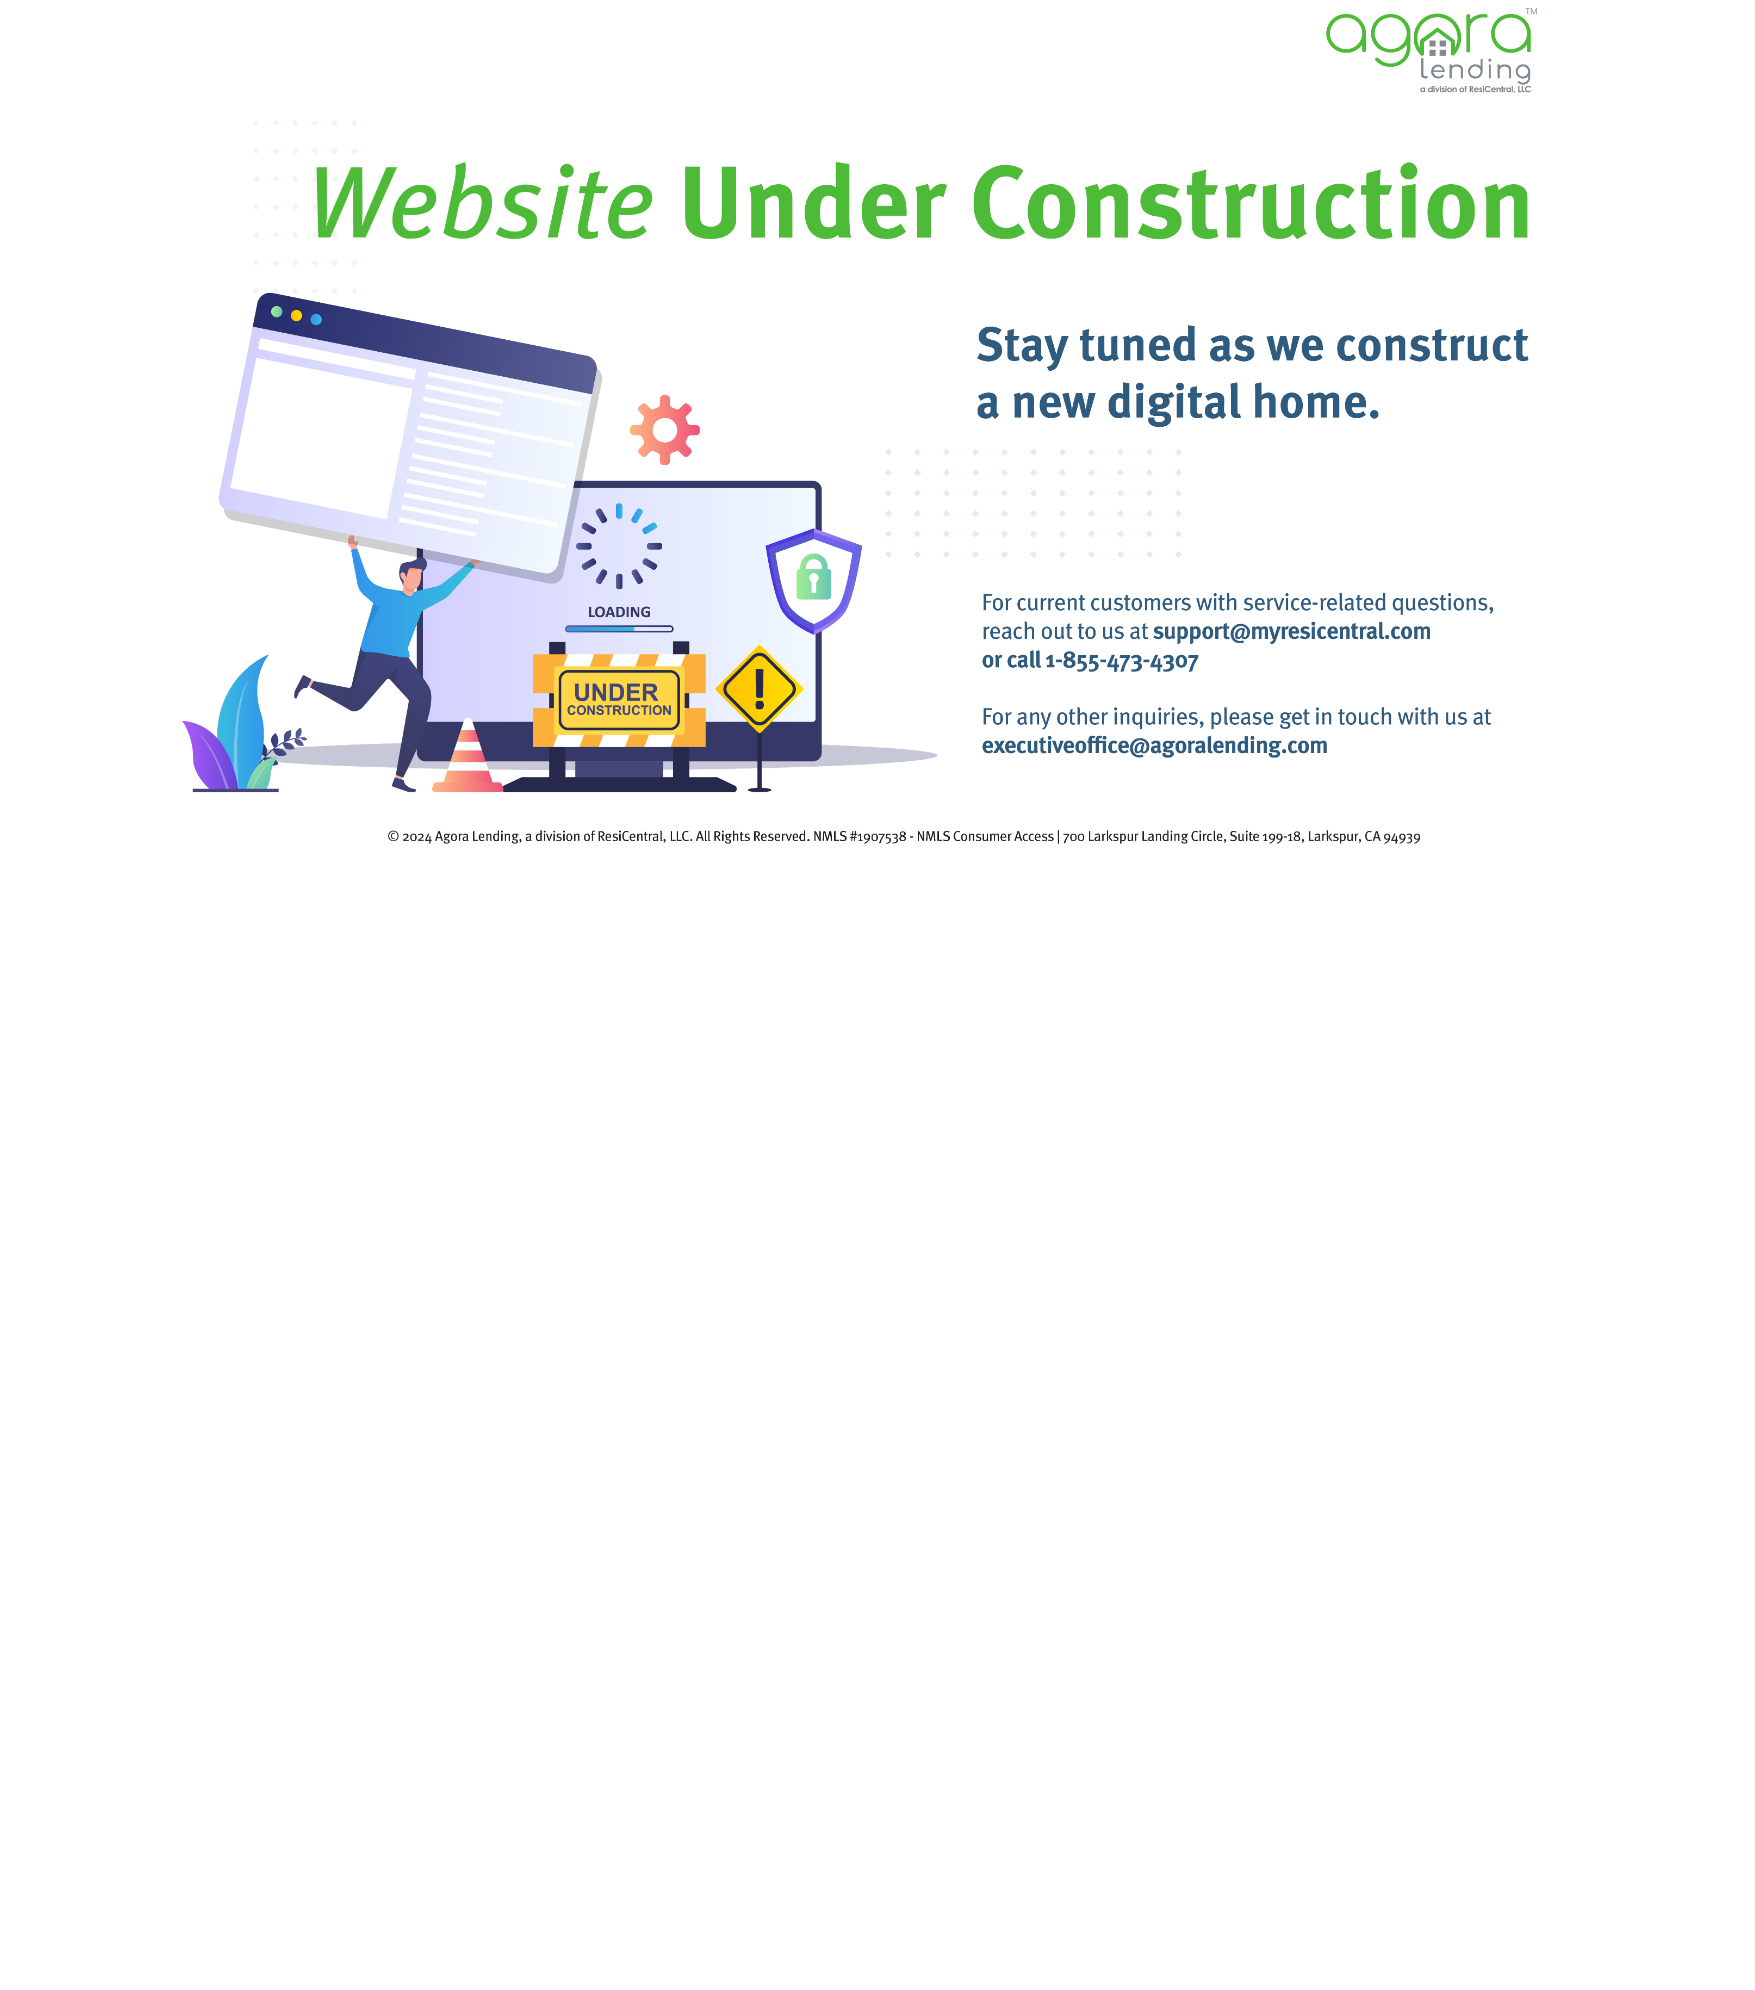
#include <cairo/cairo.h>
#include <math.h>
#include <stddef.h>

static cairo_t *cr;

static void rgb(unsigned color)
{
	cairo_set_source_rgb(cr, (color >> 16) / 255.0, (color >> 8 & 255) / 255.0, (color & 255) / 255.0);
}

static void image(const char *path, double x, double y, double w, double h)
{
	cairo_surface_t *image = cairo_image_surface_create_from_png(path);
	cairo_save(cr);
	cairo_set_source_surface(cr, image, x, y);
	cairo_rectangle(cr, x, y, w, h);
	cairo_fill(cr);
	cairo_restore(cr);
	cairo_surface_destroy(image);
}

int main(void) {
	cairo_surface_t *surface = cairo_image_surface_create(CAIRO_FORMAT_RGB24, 1755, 1990);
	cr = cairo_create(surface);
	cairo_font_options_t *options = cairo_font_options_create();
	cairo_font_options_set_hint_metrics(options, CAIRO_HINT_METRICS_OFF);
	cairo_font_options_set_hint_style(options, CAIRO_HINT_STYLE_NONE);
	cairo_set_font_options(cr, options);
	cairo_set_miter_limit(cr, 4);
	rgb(0xffffff);
	cairo_paint(cr);
	image("img/1.png", 182, 8, 1355, 836);
	cairo_surface_write_to_png(surface, "page.png");
	cairo_font_options_destroy(options);
	cairo_destroy(cr);
	cairo_surface_destroy(surface);
	return 0;
}
